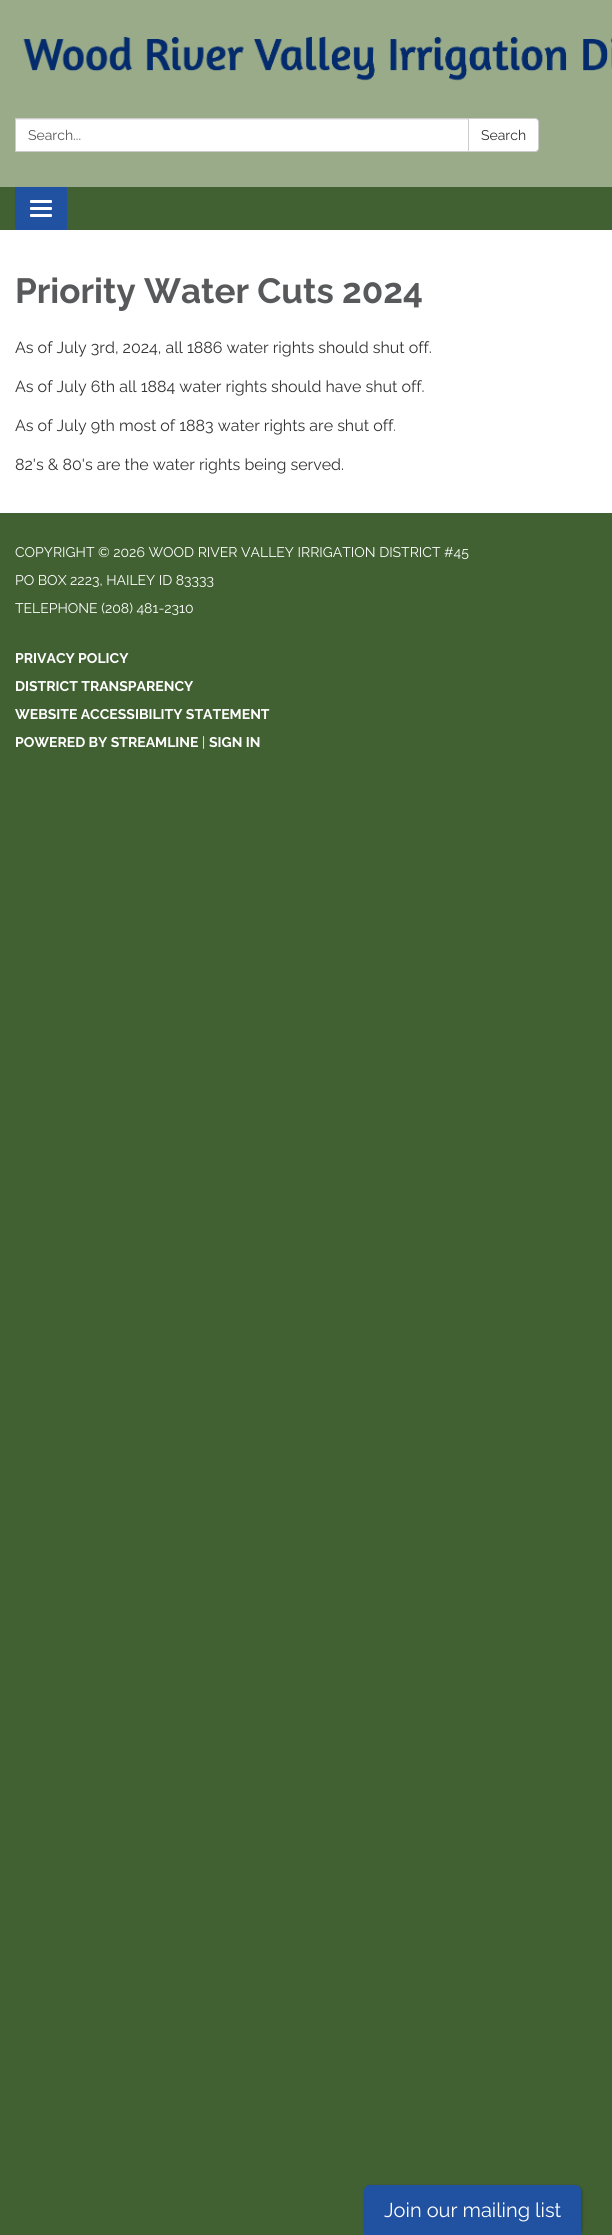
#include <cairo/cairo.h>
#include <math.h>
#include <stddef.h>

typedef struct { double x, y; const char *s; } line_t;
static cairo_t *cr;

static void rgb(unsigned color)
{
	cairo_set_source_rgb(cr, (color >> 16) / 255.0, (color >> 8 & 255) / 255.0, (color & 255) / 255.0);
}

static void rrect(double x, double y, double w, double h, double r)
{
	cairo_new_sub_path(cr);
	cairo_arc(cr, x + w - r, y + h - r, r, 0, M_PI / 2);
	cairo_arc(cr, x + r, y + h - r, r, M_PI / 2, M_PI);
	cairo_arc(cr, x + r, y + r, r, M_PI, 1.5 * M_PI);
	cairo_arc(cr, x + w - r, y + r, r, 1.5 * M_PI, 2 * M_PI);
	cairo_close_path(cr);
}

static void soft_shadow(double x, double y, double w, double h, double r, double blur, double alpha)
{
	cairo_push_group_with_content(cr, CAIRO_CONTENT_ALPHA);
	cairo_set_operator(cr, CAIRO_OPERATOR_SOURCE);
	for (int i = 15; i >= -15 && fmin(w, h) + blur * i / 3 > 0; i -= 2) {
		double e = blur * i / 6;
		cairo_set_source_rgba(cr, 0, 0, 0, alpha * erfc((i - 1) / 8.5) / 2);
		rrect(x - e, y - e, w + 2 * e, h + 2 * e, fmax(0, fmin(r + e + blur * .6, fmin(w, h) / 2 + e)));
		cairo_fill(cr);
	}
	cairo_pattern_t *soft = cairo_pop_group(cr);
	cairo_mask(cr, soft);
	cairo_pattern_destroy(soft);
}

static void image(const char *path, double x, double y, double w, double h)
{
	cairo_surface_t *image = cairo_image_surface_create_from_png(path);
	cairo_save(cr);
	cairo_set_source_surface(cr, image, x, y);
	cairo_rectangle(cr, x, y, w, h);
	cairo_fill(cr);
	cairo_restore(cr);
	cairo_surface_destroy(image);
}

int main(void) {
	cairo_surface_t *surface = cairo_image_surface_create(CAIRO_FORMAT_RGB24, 612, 2235);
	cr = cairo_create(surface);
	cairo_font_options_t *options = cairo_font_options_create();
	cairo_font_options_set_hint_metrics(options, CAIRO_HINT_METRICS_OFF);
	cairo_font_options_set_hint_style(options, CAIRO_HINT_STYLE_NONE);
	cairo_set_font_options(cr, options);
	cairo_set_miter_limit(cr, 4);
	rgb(0x426133);
	cairo_paint(cr);
	rgb(0x9aab89);
	cairo_rectangle(cr, 0, 0, 612, 187);
	cairo_fill(cr);
	image("img/1.png", 23, 36, 589, 45);
	rgb(0xffffff);
	cairo_rectangle(cr, 16, 120, 452, 31);
	cairo_fill(cr);
	rgb(0xececec);
	cairo_rectangle(cr, 16, 119, 452, 1);
	cairo_fill(cr);
	cairo_rectangle(cr, 15.5, 118.5, 453, 33);
	rgb(0xcccccc);
	cairo_set_line_width(cr, 1);
	cairo_stroke(cr);
	rgb(0xffffff);
	cairo_new_path(cr);
	cairo_move_to(cr, 468.5, 118.5);
	cairo_line_to(cr, 535, 118.5);
	cairo_curve_to(cr, 537, 118.5, 538.5, 120, 538.5, 122);
	cairo_line_to(cr, 538.5, 148);
	cairo_curve_to(cr, 538.5, 150, 537, 151.5, 535, 151.5);
	cairo_line_to(cr, 468.5, 151.5);
	cairo_close_path(cr);
	cairo_fill_preserve(cr);
	rgb(0xcccccc);
	cairo_stroke(cr);
	rgb(0x2152a1);
	cairo_rectangle(cr, 15, 187, 52, 43);
	cairo_fill(cr);
	rgb(0xffffff);
	rrect(30, 200, 22, 3, 1);
	cairo_fill(cr);
	rrect(30, 207, 22, 3, 1);
	cairo_fill(cr);
	rrect(30, 214, 22, 3, 1);
	cairo_fill(cr);
	cairo_rectangle(cr, 0, 230, 612, 283);
	cairo_fill(cr);
	rgb(0x000000);
	soft_shadow(365, 2186, 217, 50, 6, 1.5, 0.3);
	rgb(0x2152a1);
	cairo_new_path(cr);
	cairo_move_to(cr, 370, 2185);
	cairo_line_to(cr, 575, 2185);
	cairo_curve_to(cr, 578.5, 2185, 581, 2187.5, 581, 2191);
	cairo_line_to(cr, 581, 2235);
	cairo_line_to(cr, 364, 2235);
	cairo_line_to(cr, 364, 2191);
	cairo_curve_to(cr, 364, 2187.5, 366.5, 2185, 370, 2185);
	cairo_close_path(cr);
	cairo_fill(cr);
	cairo_select_font_face(cr, "Raleway", CAIRO_FONT_SLANT_NORMAL, CAIRO_FONT_WEIGHT_NORMAL);
	cairo_set_font_size(cr, 14);
	rgb(0x58595b);
	cairo_move_to(cr, 28, 140);
	cairo_show_text(cr, "Search...");
	rgb(0x333333);
	cairo_move_to(cr, 481, 140);
	cairo_show_text(cr, "Search");
	cairo_select_font_face(cr, "Raleway", CAIRO_FONT_SLANT_NORMAL, CAIRO_FONT_WEIGHT_BOLD);
	cairo_set_font_size(cr, 35);
	rgb(0x58595b);
	cairo_move_to(cr, 15, 303);
	cairo_show_text(cr, "Priority Water Cuts 2024");
	cairo_select_font_face(cr, "Raleway", CAIRO_FONT_SLANT_NORMAL, CAIRO_FONT_WEIGHT_NORMAL);
	cairo_set_font_size(cr, 16);
	rgb(0x333333);
	{
		static const line_t items[] = {
			{15, 353, "As of July 3rd, 2024, all 1886 water rights should shut off."},
			{15, 392, "As of July 6th all 1884 water rights should have shut off."},
			{15, 431, "As of July 9th most of 1883 water rights are shut off."},
			{15, 470, "82's & 80's are the water rights being served."},
		};
		for (size_t i = 0; i < sizeof items / sizeof *items; i++) {
			cairo_move_to(cr, items[i].x, items[i].y);
			cairo_show_text(cr, items[i].s);
		}
	}
	cairo_set_font_size(cr, 14);
	rgb(0xffffff);
	{
		static const line_t items[] = {
			{15, 557, "COPYRIGHT © 2026 WOOD RIVER VALLEY IRRIGATION DISTRICT #45"},
			{15, 585, "PO BOX 2223, HAILEY ID 83333"},
			{15, 613, "TELEPHONE (208) 481-2310"},
		};
		for (size_t i = 0; i < sizeof items / sizeof *items; i++) {
			cairo_move_to(cr, items[i].x, items[i].y);
			cairo_show_text(cr, items[i].s);
		}
	}
	cairo_select_font_face(cr, "Raleway", CAIRO_FONT_SLANT_NORMAL, CAIRO_FONT_WEIGHT_BOLD);
	{
		static const line_t items[] = {
			{15, 663, "PRIVACY POLICY"},
			{15, 691, "DISTRICT TRANSPARENCY"},
			{15, 719, "WEBSITE ACCESSIBILITY STATEMENT"},
			{15, 747, "POWERED BY STREAMLINE"},
		};
		for (size_t i = 0; i < sizeof items / sizeof *items; i++) {
			cairo_move_to(cr, items[i].x, items[i].y);
			cairo_show_text(cr, items[i].s);
		}
	}
	cairo_select_font_face(cr, "Raleway", CAIRO_FONT_SLANT_NORMAL, CAIRO_FONT_WEIGHT_NORMAL);
	cairo_move_to(cr, 202, 747);
	cairo_show_text(cr, "|");
	cairo_select_font_face(cr, "Raleway", CAIRO_FONT_SLANT_NORMAL, CAIRO_FONT_WEIGHT_BOLD);
	cairo_move_to(cr, 209, 747);
	cairo_show_text(cr, "SIGN IN");
	cairo_select_font_face(cr, "Raleway", CAIRO_FONT_SLANT_NORMAL, CAIRO_FONT_WEIGHT_NORMAL);
	cairo_set_font_size(cr, 20);
	cairo_move_to(cr, 384, 2217);
	cairo_show_text(cr, "Join our mailing list");
	cairo_surface_write_to_png(surface, "page.png");
	cairo_font_options_destroy(options);
	cairo_destroy(cr);
	cairo_surface_destroy(surface);
	return 0;
}
